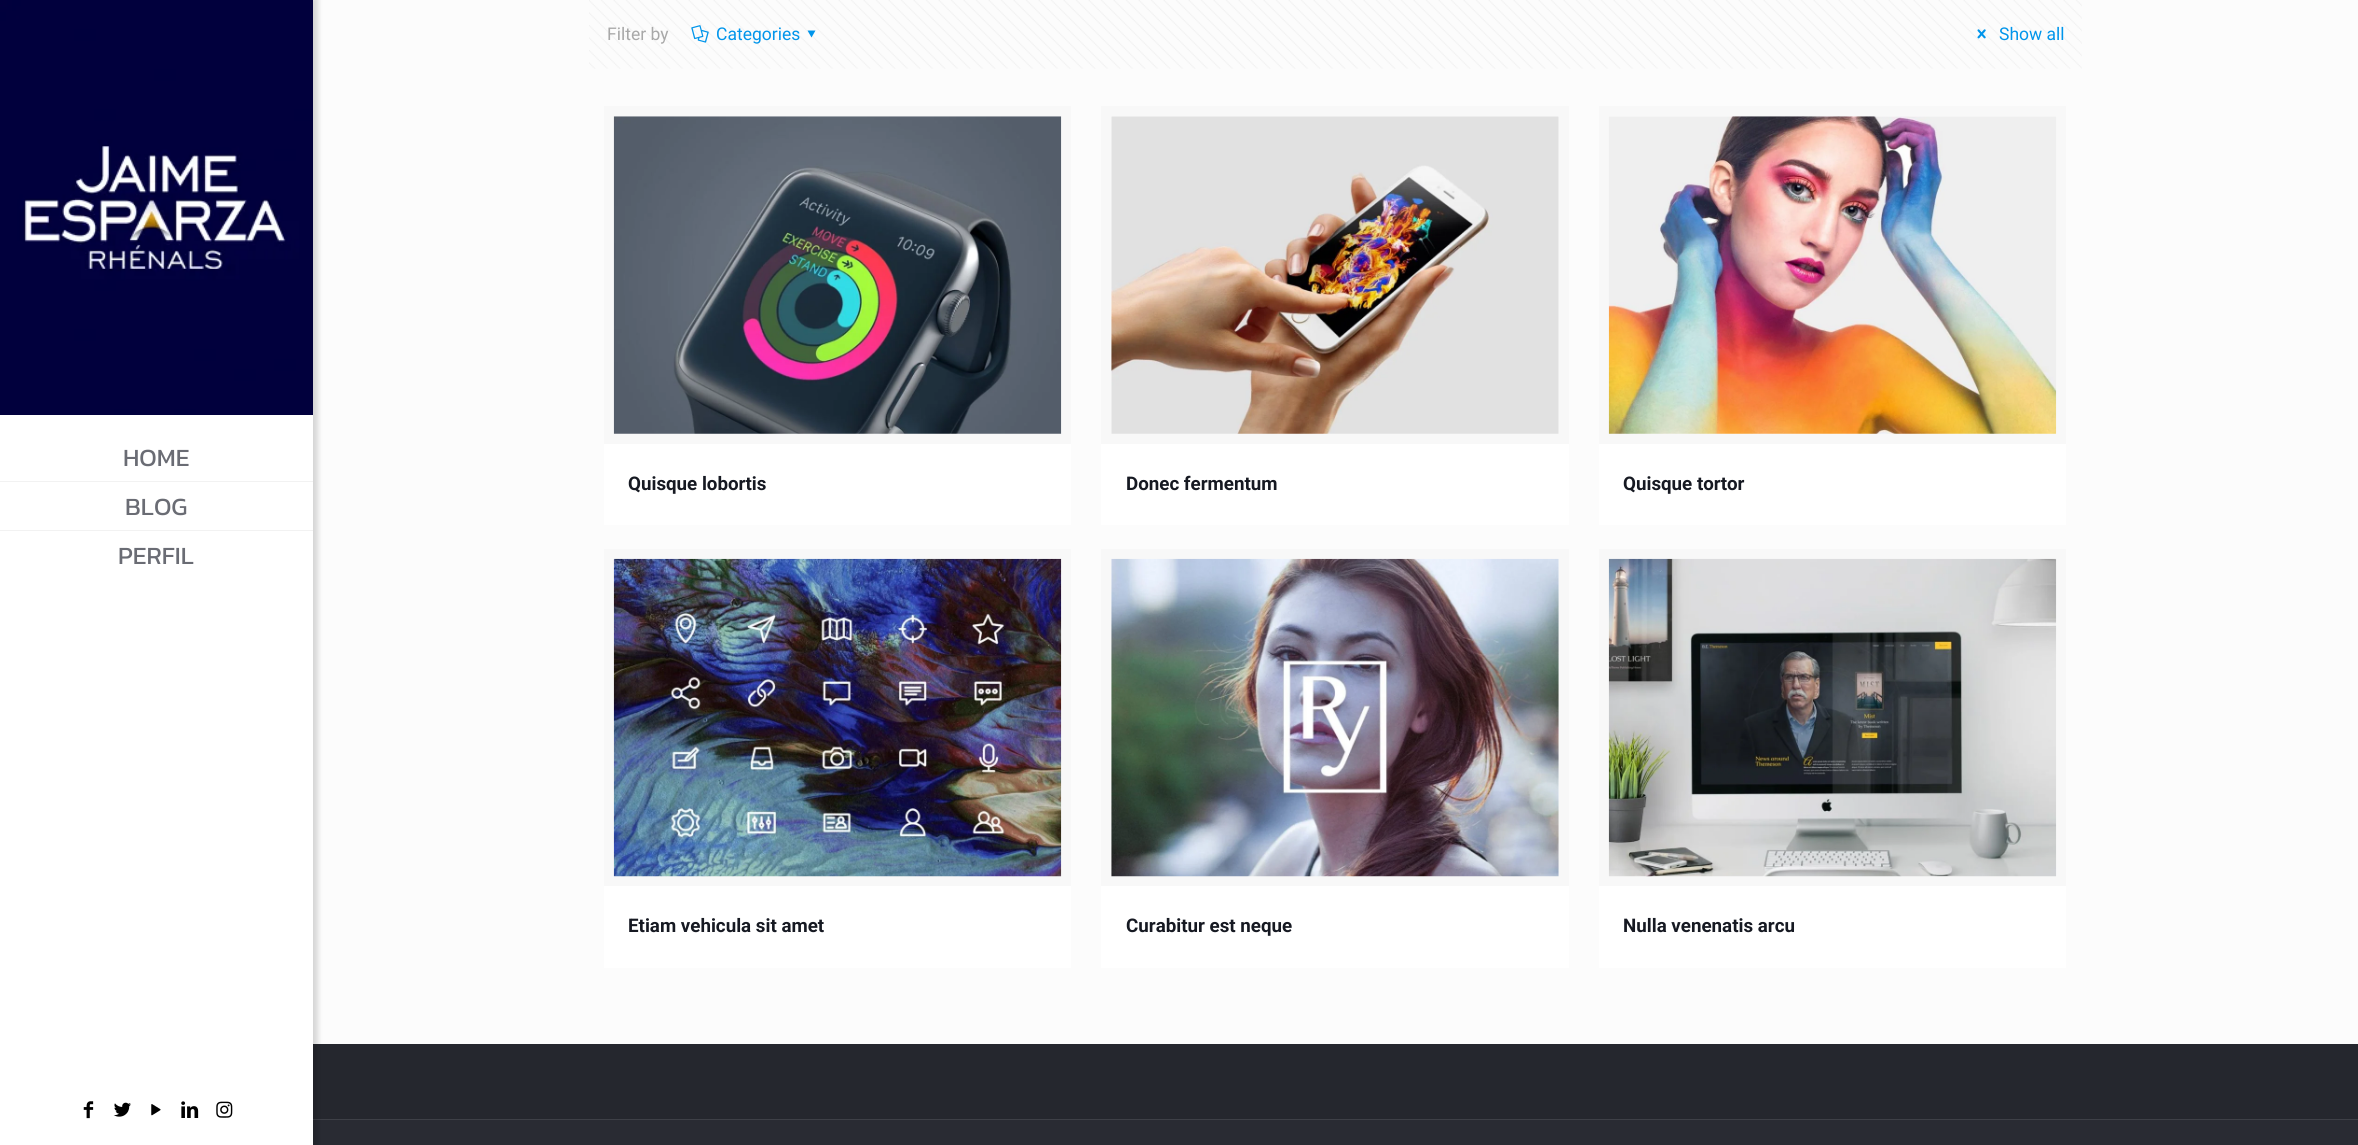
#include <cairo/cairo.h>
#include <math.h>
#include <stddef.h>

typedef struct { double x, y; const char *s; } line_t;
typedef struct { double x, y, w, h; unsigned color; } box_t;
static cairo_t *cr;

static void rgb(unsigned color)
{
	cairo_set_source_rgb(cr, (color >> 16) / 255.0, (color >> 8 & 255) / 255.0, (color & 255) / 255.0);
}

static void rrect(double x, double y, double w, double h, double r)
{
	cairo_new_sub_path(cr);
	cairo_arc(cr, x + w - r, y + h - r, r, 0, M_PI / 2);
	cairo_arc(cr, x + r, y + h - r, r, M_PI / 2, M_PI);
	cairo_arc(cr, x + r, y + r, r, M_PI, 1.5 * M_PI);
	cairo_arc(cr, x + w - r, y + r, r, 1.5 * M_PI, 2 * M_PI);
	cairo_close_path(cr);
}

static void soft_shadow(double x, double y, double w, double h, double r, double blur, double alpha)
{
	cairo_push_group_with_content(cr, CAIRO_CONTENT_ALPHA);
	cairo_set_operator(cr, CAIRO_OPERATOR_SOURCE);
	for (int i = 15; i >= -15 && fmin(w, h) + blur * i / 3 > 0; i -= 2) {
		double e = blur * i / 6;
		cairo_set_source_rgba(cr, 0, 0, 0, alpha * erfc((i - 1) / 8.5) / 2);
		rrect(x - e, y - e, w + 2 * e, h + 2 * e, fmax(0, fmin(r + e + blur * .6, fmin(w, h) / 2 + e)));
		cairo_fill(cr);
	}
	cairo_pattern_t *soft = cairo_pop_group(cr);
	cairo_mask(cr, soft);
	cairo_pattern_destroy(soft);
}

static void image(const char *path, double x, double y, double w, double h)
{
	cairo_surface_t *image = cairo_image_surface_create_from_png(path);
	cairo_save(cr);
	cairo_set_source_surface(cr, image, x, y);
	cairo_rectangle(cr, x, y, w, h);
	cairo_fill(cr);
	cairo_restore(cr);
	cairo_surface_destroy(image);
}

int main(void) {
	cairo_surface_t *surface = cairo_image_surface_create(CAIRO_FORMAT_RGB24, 2358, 1145);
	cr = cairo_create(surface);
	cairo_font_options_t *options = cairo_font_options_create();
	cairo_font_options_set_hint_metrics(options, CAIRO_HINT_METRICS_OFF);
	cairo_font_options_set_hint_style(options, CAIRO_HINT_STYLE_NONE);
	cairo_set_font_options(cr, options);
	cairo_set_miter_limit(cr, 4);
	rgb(0xfcfcfc);
	cairo_paint(cr);
	{
		static const box_t items[] = {
			{313, 1120, 2045, 25, 0x292b33},
			{313, 1044, 2045, 75, 0x25272e},
			{313, 1119, 2045, 1, 0x3e4047},
		};
		for (size_t i = 0; i < sizeof items / sizeof *items; i++) {
			rgb(items[i].color);
			cairo_rectangle(cr, items[i].x, items[i].y, items[i].w, items[i].h);
			cairo_fill(cr);
		}
	}
	rgb(0x000000);
	soft_shadow(0, -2, 318, 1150, 0, 2.5, 0.15);
	rgb(0xffffff);
	cairo_rectangle(cr, 0, 415, 313, 730);
	cairo_fill(cr);
	image("img/1.png", 0, 0, 313, 415);
	rgb(0xf2f2f2);
	cairo_rectangle(cr, 0, 481, 313, 1);
	cairo_fill(cr);
	cairo_rectangle(cr, 0, 530, 313, 1);
	cairo_fill(cr);
	image("img/2.png", 83, 1101, 11, 18);
	image("img/3.png", 113, 1102, 18, 15);
	image("img/4.png", 151, 1104, 10, 12);
	image("img/5.png", 181, 1101, 18, 17);
	image("img/6.png", 216, 1101, 17, 17);
	image("img/7.png", 589, 0, 1493, 69);
	image("img/8.png", 691, 25, 18, 18);
	rgb(0x0095eb);
	cairo_new_path(cr);
	cairo_move_to(cr, 815.5, 30.5);
	cairo_line_to(cr, 811.5, 37.5);
	cairo_line_to(cr, 807.5, 30.5);
	cairo_close_path(cr);
	cairo_fill(cr);
	image("img/9.png", 1977, 29, 9, 10);
	cairo_rectangle(cr, 609, 111, 457, 328);
	rgb(0xf8f8f8);
	cairo_set_line_width(cr, 10);
	cairo_stroke(cr);
	image("img/10.png", 613, 116, 449, 318);
	rgb(0xffffff);
	cairo_rectangle(cr, 604, 444, 467, 81);
	cairo_fill(cr);
	cairo_rectangle(cr, 1106, 111, 458, 328);
	rgb(0xf8f8f8);
	cairo_stroke(cr);
	image("img/11.png", 1111, 116, 448, 318);
	rgb(0xffffff);
	cairo_rectangle(cr, 1101, 444, 468, 81);
	cairo_fill(cr);
	cairo_rectangle(cr, 1604, 111, 457, 328);
	rgb(0xf8f8f8);
	cairo_stroke(cr);
	image("img/12.png", 1608, 116, 449, 318);
	rgb(0xffffff);
	cairo_rectangle(cr, 1599, 444, 467, 81);
	cairo_fill(cr);
	cairo_rectangle(cr, 609, 554, 457, 327);
	rgb(0xf8f8f8);
	cairo_stroke(cr);
	image("img/13.png", 613, 558, 449, 319);
	rgb(0xffffff);
	cairo_rectangle(cr, 604, 886, 467, 82);
	cairo_fill(cr);
	cairo_rectangle(cr, 1106, 554, 458, 327);
	rgb(0xf8f8f8);
	cairo_stroke(cr);
	image("img/14.png", 1111, 558, 448, 319);
	rgb(0xffffff);
	cairo_rectangle(cr, 1101, 886, 468, 82);
	cairo_fill(cr);
	cairo_rectangle(cr, 1604, 554, 457, 327);
	rgb(0xf8f8f8);
	cairo_stroke(cr);
	image("img/15.png", 1608, 558, 449, 319);
	rgb(0xffffff);
	cairo_rectangle(cr, 1599, 886, 467, 82);
	cairo_fill(cr);
	cairo_select_font_face(cr, "Kanit", CAIRO_FONT_SLANT_NORMAL, CAIRO_FONT_WEIGHT_NORMAL);
	cairo_set_font_size(cr, 25);
	rgb(0x6a6c74);
	{
		static const line_t items[] = {
			{123, 466, "HOME"},
			{125, 515, "BLOG"},
			{118, 564, "PERFIL"},
		};
		for (size_t i = 0; i < sizeof items / sizeof *items; i++) {
			cairo_move_to(cr, items[i].x, items[i].y);
			cairo_show_text(cr, items[i].s);
		}
	}
	cairo_select_font_face(cr, "Roboto", CAIRO_FONT_SLANT_NORMAL, CAIRO_FONT_WEIGHT_NORMAL);
	cairo_set_font_size(cr, 17.5);
	rgb(0xa8a8a8);
	cairo_move_to(cr, 607, 40);
	cairo_show_text(cr, "Filter by");
	rgb(0x0095eb);
	cairo_move_to(cr, 716, 40);
	cairo_show_text(cr, "Categories");
	cairo_move_to(cr, 1999, 40);
	cairo_show_text(cr, "Show all");
	cairo_select_font_face(cr, "Roboto", CAIRO_FONT_SLANT_NORMAL, CAIRO_FONT_WEIGHT_BOLD);
	cairo_set_font_size(cr, 18.75);
	rgb(0x161922);
	{
		static const line_t items[] = {
			{628, 490, "Quisque lobortis"},
			{1126, 490, "Donec fermentum"},
			{1623, 490, "Quisque tortor"},
			{628, 932, "Etiam vehicula sit amet"},
			{1126, 932, "Curabitur est neque"},
			{1623, 932, "Nulla venenatis arcu"},
		};
		for (size_t i = 0; i < sizeof items / sizeof *items; i++) {
			cairo_move_to(cr, items[i].x, items[i].y);
			cairo_show_text(cr, items[i].s);
		}
	}
	cairo_surface_write_to_png(surface, "page.png");
	cairo_font_options_destroy(options);
	cairo_destroy(cr);
	cairo_surface_destroy(surface);
	return 0;
}
